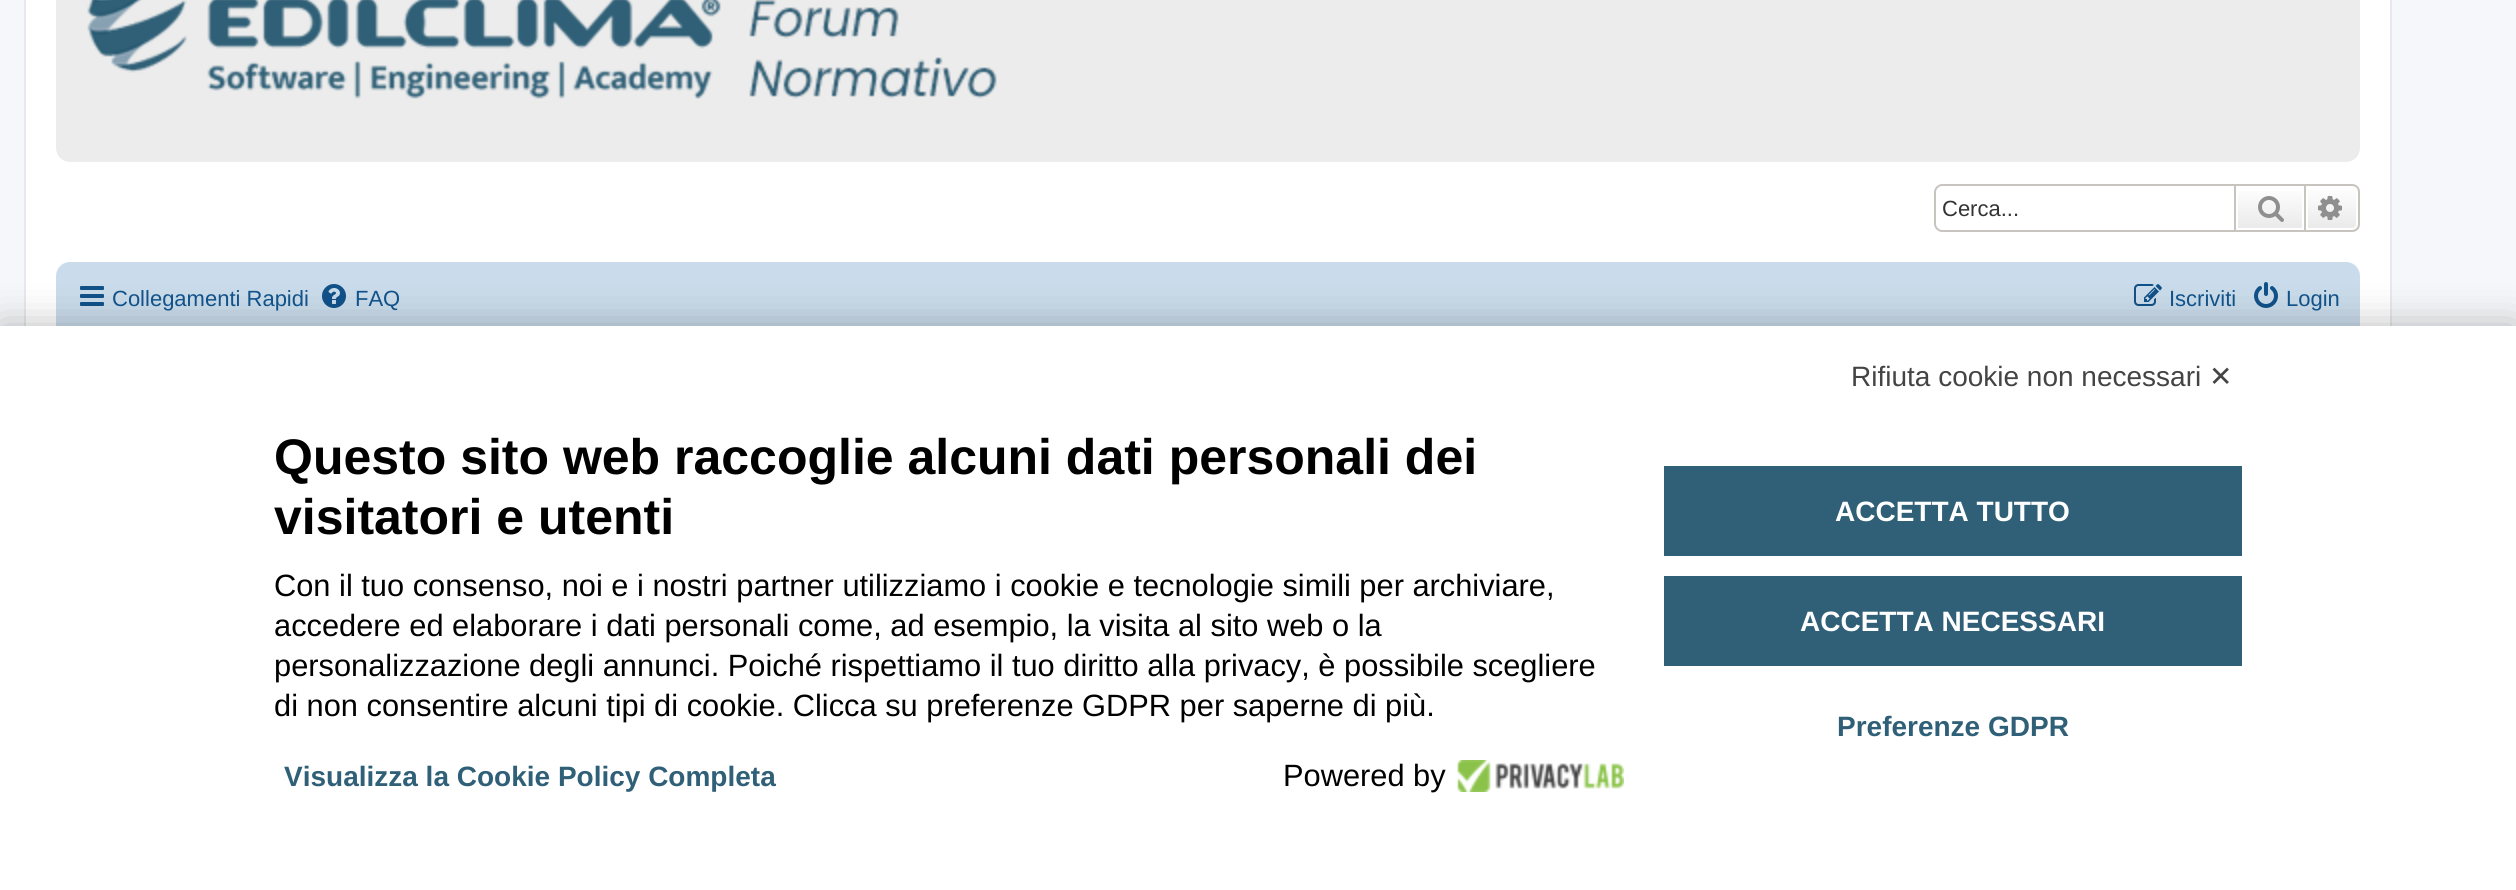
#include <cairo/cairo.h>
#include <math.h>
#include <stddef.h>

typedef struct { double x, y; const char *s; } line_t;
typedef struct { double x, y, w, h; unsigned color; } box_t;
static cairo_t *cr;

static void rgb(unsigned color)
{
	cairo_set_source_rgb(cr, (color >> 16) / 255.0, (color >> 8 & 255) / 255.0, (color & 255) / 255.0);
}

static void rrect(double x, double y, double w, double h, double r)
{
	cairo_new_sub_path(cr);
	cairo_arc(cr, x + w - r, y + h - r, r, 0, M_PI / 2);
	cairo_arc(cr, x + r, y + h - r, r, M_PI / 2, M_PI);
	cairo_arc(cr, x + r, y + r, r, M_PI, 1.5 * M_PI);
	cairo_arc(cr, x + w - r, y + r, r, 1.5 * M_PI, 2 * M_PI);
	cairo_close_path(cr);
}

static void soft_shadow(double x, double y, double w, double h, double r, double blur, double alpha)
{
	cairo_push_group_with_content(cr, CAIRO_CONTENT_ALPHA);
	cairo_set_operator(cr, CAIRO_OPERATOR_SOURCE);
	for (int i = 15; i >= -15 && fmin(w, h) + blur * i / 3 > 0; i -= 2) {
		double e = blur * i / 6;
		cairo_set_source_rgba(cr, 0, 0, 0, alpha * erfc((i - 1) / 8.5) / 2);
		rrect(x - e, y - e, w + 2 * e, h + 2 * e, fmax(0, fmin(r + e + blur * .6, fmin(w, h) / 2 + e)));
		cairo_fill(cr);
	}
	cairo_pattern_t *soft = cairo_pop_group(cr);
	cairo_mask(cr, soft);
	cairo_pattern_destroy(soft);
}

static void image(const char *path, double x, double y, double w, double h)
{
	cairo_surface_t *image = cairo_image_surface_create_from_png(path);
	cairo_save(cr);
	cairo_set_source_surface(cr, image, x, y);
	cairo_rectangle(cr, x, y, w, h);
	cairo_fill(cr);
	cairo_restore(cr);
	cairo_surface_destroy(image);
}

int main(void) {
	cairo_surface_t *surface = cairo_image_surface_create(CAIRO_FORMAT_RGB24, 2516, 890);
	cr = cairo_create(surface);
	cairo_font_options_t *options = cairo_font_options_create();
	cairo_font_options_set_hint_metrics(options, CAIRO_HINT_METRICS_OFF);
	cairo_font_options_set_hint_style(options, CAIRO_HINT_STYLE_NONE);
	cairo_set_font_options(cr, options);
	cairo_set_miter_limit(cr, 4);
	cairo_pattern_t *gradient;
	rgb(0xf5f7fa);
	cairo_paint(cr);
	rgb(0xffffff);
	cairo_rectangle(cr, 26, 0, 2364, 326);
	cairo_fill(cr);
	cairo_rectangle(cr, 25, -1, 2366, 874);
	rgb(0xe6e9ed);
	cairo_stroke(cr);
	rgb(0xececec);
	rrect(56, -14, 2304, 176, 14);
	cairo_fill(cr);
	image("img/1.png", 87, 0, 910, 99);
	rgb(0xc7c3bf);
	cairo_set_fill_rule(cr, CAIRO_FILL_RULE_EVEN_ODD);
	cairo_new_path(cr);
	cairo_move_to(cr, 1942, 184);
	cairo_line_to(cr, 2234, 184);
	cairo_line_to(cr, 2234, 232);
	cairo_line_to(cr, 1942, 232);
	cairo_curve_to(cr, 1938, 232, 1934, 228, 1934, 224);
	cairo_line_to(cr, 1934, 192);
	cairo_curve_to(cr, 1934, 188, 1938, 184, 1942, 184);
	cairo_close_path(cr);
	cairo_move_to(cr, 1942, 186);
	cairo_line_to(cr, 2234, 186);
	cairo_line_to(cr, 2234, 230);
	cairo_line_to(cr, 1942, 230);
	cairo_curve_to(cr, 1939, 230, 1936, 227, 1936, 224);
	cairo_line_to(cr, 1936, 192);
	cairo_curve_to(cr, 1936, 189, 1939, 186, 1942, 186);
	cairo_close_path(cr);
	cairo_fill(cr);
	gradient = cairo_pattern_create_linear(2270, 186, 2270, 230);
	cairo_pattern_add_color_stop_rgba(gradient, 0, 1, 1, 1, 1);
	cairo_pattern_add_color_stop_rgba(gradient, 1, 0.914, 0.914, 0.914, 1);
	cairo_set_source(cr, gradient);
	cairo_pattern_destroy(gradient);
	cairo_rectangle(cr, 2238, 191, 64, 37);
	cairo_fill(cr);
	{
		static const box_t items[] = {
			{2234, 184, 70, 2, 0xc7c3bf},
			{2234, 230, 70, 2, 0xc7c3bf},
			{2234, 184, 2, 48, 0xc7c3bf},
		};
		for (size_t i = 0; i < sizeof items / sizeof *items; i++) {
			rgb(items[i].color);
			cairo_rectangle(cr, items[i].x, items[i].y, items[i].w, items[i].h);
			cairo_fill(cr);
		}
	}
	image("img/2.png", 2258, 196, 26, 26);
	cairo_save(cr);
	cairo_set_fill_rule(cr, CAIRO_FILL_RULE_WINDING);
	cairo_new_path(cr);
	cairo_move_to(cr, 2304, 184);
	cairo_line_to(cr, 2352, 184);
	cairo_curve_to(cr, 2356.5, 184, 2360, 187.5, 2360, 192);
	cairo_line_to(cr, 2360, 224);
	cairo_curve_to(cr, 2360, 228.5, 2356.5, 232, 2352, 232);
	cairo_line_to(cr, 2304, 232);
	cairo_close_path(cr);
	cairo_clip(cr);
	gradient = cairo_pattern_create_linear(2332, 186, 2332, 230);
	cairo_pattern_add_color_stop_rgba(gradient, 0, 1, 1, 1, 1);
	cairo_pattern_add_color_stop_rgba(gradient, 1, 0.914, 0.914, 0.914, 1);
	cairo_set_source(cr, gradient);
	cairo_pattern_destroy(gradient);
	cairo_rectangle(cr, 2308, 186, 52, 44);
	cairo_fill(cr);
	cairo_restore(cr);
	cairo_new_path(cr);
	cairo_move_to(cr, 2307, 187);
	cairo_line_to(cr, 2352, 187);
	cairo_curve_to(cr, 2355, 187, 2357, 189, 2357, 192);
	cairo_line_to(cr, 2357, 224);
	cairo_curve_to(cr, 2357, 227, 2355, 229, 2352, 229);
	cairo_line_to(cr, 2307, 229);
	cairo_close_path(cr);
	rgb(0xffffff);
	cairo_stroke(cr);
	cairo_new_path(cr);
	cairo_move_to(cr, 2305, 185);
	cairo_line_to(cr, 2352, 185);
	cairo_curve_to(cr, 2356, 185, 2359, 188, 2359, 192);
	cairo_line_to(cr, 2359, 224);
	cairo_curve_to(cr, 2359, 228, 2356, 231, 2352, 231);
	cairo_line_to(cr, 2305, 231);
	cairo_close_path(cr);
	rgb(0xc7c3bf);
	cairo_stroke(cr);
	image("img/3.png", 2318, 196, 24, 24);
	rgb(0xcadceb);
	rrect(56, 262, 2304, 130, 14);
	cairo_fill(cr);
	image("img/4.png", 80, 286, 24, 20);
	image("img/5.png", 322, 284, 24, 24);
	image("img/6.png", 2134, 284, 28, 22);
	image("img/7.png", 2254, 282, 24, 26);
	rgb(0x000000);
	soft_shadow(0, 326, 2516, 564, 0, 20, 0.27);
	rgb(0xffffff);
	cairo_rectangle(cr, 0, 326, 2516, 564);
	cairo_fill(cr);
	image("img/8.png", 1457, 760, 167, 32);
	rgb(0x306077);
	cairo_rectangle(cr, 1664, 466, 578, 90);
	cairo_fill(cr);
	cairo_rectangle(cr, 1664, 576, 578, 90);
	cairo_fill(cr);
	cairo_select_font_face(cr, "Liberation Sans", CAIRO_FONT_SLANT_NORMAL, CAIRO_FONT_WEIGHT_NORMAL);
	cairo_set_font_size(cr, 22);
	rgb(0x333333);
	cairo_move_to(cr, 1942, 216);
	cairo_show_text(cr, "Cerca...");
	rgb(0x105289);
	{
		static const line_t items[] = {
			{112, 306, "Collegamenti Rapidi"},
			{355, 306, "FAQ"},
			{2169, 306, "Iscriviti"},
			{2286, 306, "Login"},
		};
		for (size_t i = 0; i < sizeof items / sizeof *items; i++) {
			cairo_move_to(cr, items[i].x, items[i].y);
			cairo_show_text(cr, items[i].s);
		}
	}
	cairo_set_font_size(cr, 28);
	rgb(0x444444);
	cairo_move_to(cr, 1851, 386);
	cairo_show_text(cr, "Rifiuta cookie non necessari");
	cairo_select_font_face(cr, "DejaVu Sans", CAIRO_FONT_SLANT_NORMAL, CAIRO_FONT_WEIGHT_NORMAL);
	cairo_move_to(cr, 2209, 386);
	cairo_show_text(cr, "✕");
	cairo_select_font_face(cr, "Liberation Sans", CAIRO_FONT_SLANT_NORMAL, CAIRO_FONT_WEIGHT_BOLD);
	cairo_set_font_size(cr, 50);
	rgb(0x000000);
	cairo_move_to(cr, 274, 474);
	cairo_show_text(cr, "Questo sito web raccoglie alcuni dati personali dei");
	cairo_move_to(cr, 274, 534);
	cairo_show_text(cr, "visitatori e utenti");
	cairo_select_font_face(cr, "Liberation Sans", CAIRO_FONT_SLANT_NORMAL, CAIRO_FONT_WEIGHT_NORMAL);
	cairo_set_font_size(cr, 30.8);
	{
		static const line_t items[] = {
			{274, 596, "Con il tuo consenso, noi e i nostri partner utilizziamo i cookie e tecnologie simili per archiviare,"},
			{274, 636, "accedere ed elaborare i dati personali come, ad esempio, la visita al sito web o la"},
			{274, 676, "personalizzazione degli annunci. Poiché rispettiamo il tuo diritto alla privacy, è possibile scegliere"},
			{274, 716, "di non consentire alcuni tipi di cookie. Clicca su preferenze GDPR per saperne di più."},
		};
		for (size_t i = 0; i < sizeof items / sizeof *items; i++) {
			cairo_move_to(cr, items[i].x, items[i].y);
			cairo_show_text(cr, items[i].s);
		}
	}
	cairo_select_font_face(cr, "Liberation Sans", CAIRO_FONT_SLANT_NORMAL, CAIRO_FONT_WEIGHT_BOLD);
	cairo_set_font_size(cr, 28);
	rgb(0x306077);
	cairo_move_to(cr, 284, 786);
	cairo_show_text(cr, "Visualizza la Cookie Policy Completa");
	cairo_select_font_face(cr, "Liberation Sans", CAIRO_FONT_SLANT_NORMAL, CAIRO_FONT_WEIGHT_NORMAL);
	cairo_set_font_size(cr, 30.8);
	rgb(0x000000);
	cairo_move_to(cr, 1283, 786);
	cairo_show_text(cr, "Powered by");
	cairo_select_font_face(cr, "Liberation Sans", CAIRO_FONT_SLANT_NORMAL, CAIRO_FONT_WEIGHT_BOLD);
	cairo_set_font_size(cr, 28);
	rgb(0xffffff);
	cairo_move_to(cr, 1835, 521);
	cairo_show_text(cr, "ACCETTA TUTTO");
	cairo_move_to(cr, 1800, 631);
	cairo_show_text(cr, "ACCETTA NECESSARI");
	rgb(0x306077);
	cairo_move_to(cr, 1837, 736);
	cairo_show_text(cr, "Preferenze GDPR");
	cairo_surface_write_to_png(surface, "page.png");
	cairo_font_options_destroy(options);
	cairo_destroy(cr);
	cairo_surface_destroy(surface);
	return 0;
}
